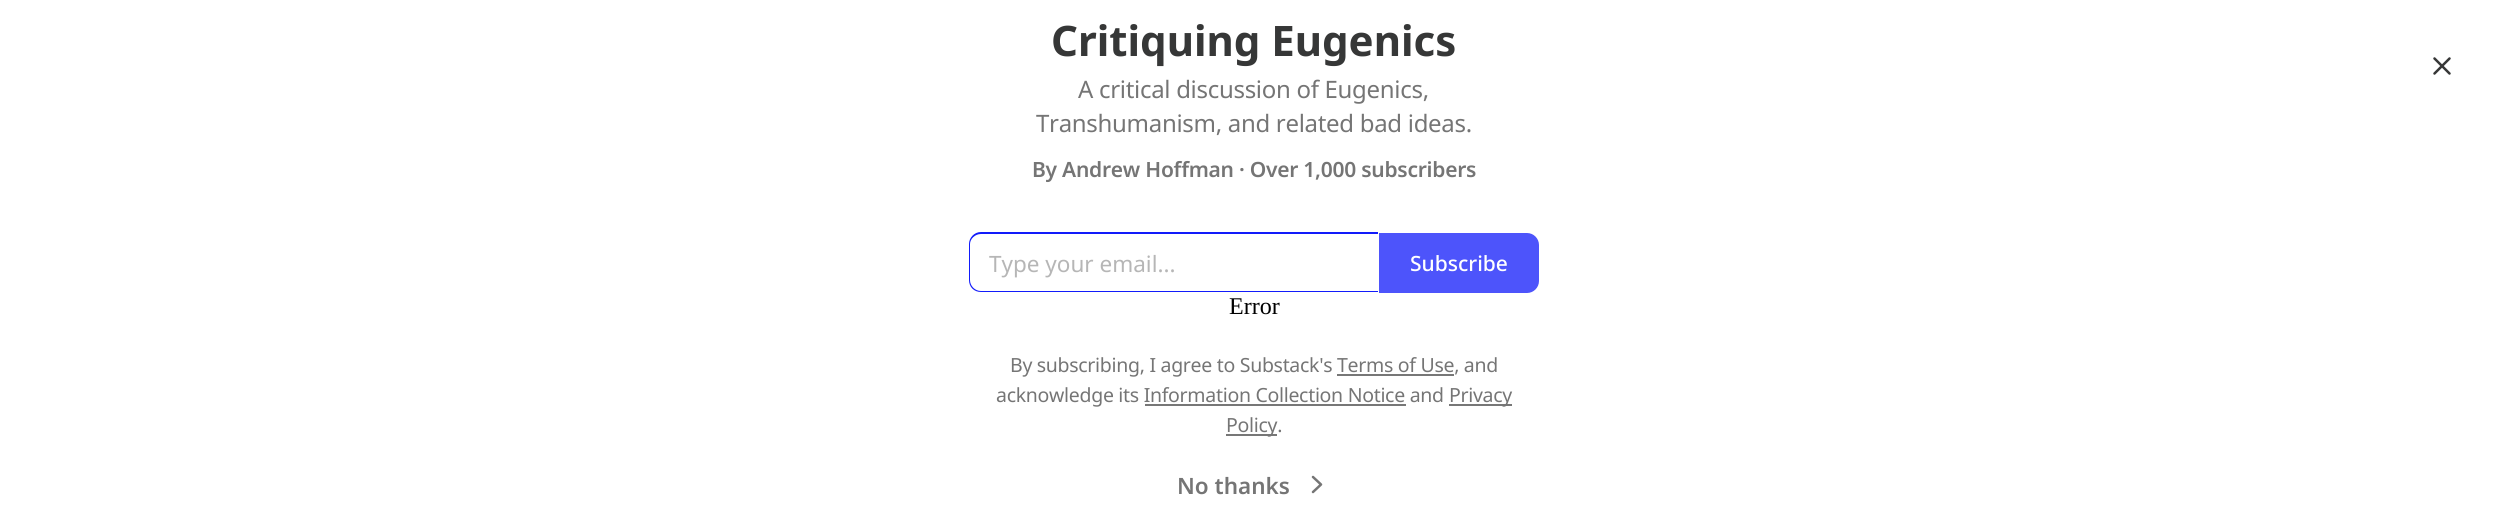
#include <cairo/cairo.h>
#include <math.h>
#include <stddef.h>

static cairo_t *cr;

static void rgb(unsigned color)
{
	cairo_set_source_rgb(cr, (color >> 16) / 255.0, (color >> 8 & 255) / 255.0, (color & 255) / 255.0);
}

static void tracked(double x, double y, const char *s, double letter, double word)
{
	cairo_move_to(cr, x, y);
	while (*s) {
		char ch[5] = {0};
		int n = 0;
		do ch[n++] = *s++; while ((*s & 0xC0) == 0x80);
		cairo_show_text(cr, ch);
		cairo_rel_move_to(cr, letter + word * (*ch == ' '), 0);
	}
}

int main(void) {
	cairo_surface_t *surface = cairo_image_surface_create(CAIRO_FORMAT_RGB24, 2507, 523);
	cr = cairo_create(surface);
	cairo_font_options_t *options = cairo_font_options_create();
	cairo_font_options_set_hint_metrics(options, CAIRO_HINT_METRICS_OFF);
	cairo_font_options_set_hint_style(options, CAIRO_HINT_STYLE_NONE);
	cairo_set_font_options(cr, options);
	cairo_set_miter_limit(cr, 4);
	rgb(0xffffff);
	cairo_paint(cr);
	cairo_new_path(cr);
	cairo_move_to(cr, 2449.5, 58.5);
	cairo_line_to(cr, 2434.5, 73.5);
	cairo_move_to(cr, 2434.5, 58.5);
	cairo_line_to(cr, 2449.5, 73.5);
	rgb(0x363737);
	cairo_set_line_width(cr, 2.5);
	cairo_set_line_cap(cr, CAIRO_LINE_CAP_ROUND);
	cairo_set_line_join(cr, CAIRO_LINE_JOIN_ROUND);
	cairo_stroke(cr);
	rgb(0x121bfa);
	cairo_set_fill_rule(cr, CAIRO_FILL_RULE_EVEN_ODD);
	cairo_new_path(cr);
	cairo_move_to(cr, 981, 232);
	cairo_line_to(cr, 1378, 232);
	cairo_line_to(cr, 1378, 292);
	cairo_line_to(cr, 981, 292);
	cairo_curve_to(cr, 974, 292, 969, 287, 969, 280);
	cairo_line_to(cr, 969, 244);
	cairo_curve_to(cr, 969, 238, 974, 232, 981, 232);
	cairo_close_path(cr);
	cairo_move_to(cr, 981, 234);
	cairo_line_to(cr, 1378, 234);
	cairo_line_to(cr, 1378, 291);
	cairo_line_to(cr, 981, 291);
	cairo_curve_to(cr, 975, 291, 970, 286, 970, 280);
	cairo_line_to(cr, 970, 244);
	cairo_curve_to(cr, 970, 239, 975, 234, 981, 234);
	cairo_close_path(cr);
	cairo_fill(cr);
	rgb(0x4d54fb);
	cairo_new_path(cr);
	cairo_move_to(cr, 1380, 234);
	cairo_line_to(cr, 1527, 234);
	cairo_curve_to(cr, 1533, 234, 1538, 239, 1538, 245);
	cairo_line_to(cr, 1538, 281);
	cairo_curve_to(cr, 1538, 287, 1533, 292, 1527, 292);
	cairo_line_to(cr, 1380, 292);
	cairo_close_path(cr);
	cairo_fill_preserve(cr);
	cairo_set_line_width(cr, 2);
	cairo_set_line_cap(cr, CAIRO_LINE_CAP_BUTT);
	cairo_set_line_join(cr, CAIRO_LINE_JOIN_MITER);
	cairo_stroke(cr);
	rgb(0x777777);
	cairo_rectangle(cr, 1449, 404, 63, 2);
	cairo_fill(cr);
	cairo_rectangle(cr, 1226, 434, 51, 2);
	cairo_fill(cr);
	cairo_new_path(cr);
	cairo_move_to(cr, 1313, 492);
	cairo_line_to(cr, 1321, 484.5);
	cairo_line_to(cr, 1313, 477);
	rgb(0x757575);
	cairo_set_line_width(cr, 2.5);
	cairo_set_line_cap(cr, CAIRO_LINE_CAP_ROUND);
	cairo_set_line_join(cr, CAIRO_LINE_JOIN_ROUND);
	cairo_stroke(cr);
	cairo_select_font_face(cr, "Noto Sans", CAIRO_FONT_SLANT_NORMAL, CAIRO_FONT_WEIGHT_BOLD);
	cairo_set_font_size(cr, 42);
	rgb(0x363737);
	cairo_move_to(cr, 1051, 56);
	cairo_show_text(cr, "Critiquing Eugenics");
	cairo_select_font_face(cr, "Noto Sans", CAIRO_FONT_SLANT_NORMAL, CAIRO_FONT_WEIGHT_NORMAL);
	cairo_set_font_size(cr, 24);
	rgb(0x757575);
	tracked(1078, 98, "A critical discussion of Eugenics,", -0.3, 0);
	tracked(1036, 132, "Transhumanism, and related bad ideas.", -0.3, 0);
	cairo_select_font_face(cr, "Noto Sans SemiBold", CAIRO_FONT_SLANT_NORMAL, CAIRO_FONT_WEIGHT_NORMAL);
	cairo_set_font_size(cr, 21);
	tracked(1032, 177, "By Andrew Hoffman · Over 1,000 subscribers", -0.25, 0);
	cairo_select_font_face(cr, "Noto Sans", CAIRO_FONT_SLANT_NORMAL, CAIRO_FONT_WEIGHT_NORMAL);
	cairo_set_font_size(cr, 22.5);
	rgb(0xb6b6b6);
	cairo_move_to(cr, 989, 272);
	cairo_show_text(cr, "Type your email...");
	cairo_select_font_face(cr, "Noto Sans Medium", CAIRO_FONT_SLANT_NORMAL, CAIRO_FONT_WEIGHT_NORMAL);
	cairo_set_font_size(cr, 21);
	rgb(0xffffff);
	cairo_move_to(cr, 1410, 271);
	cairo_show_text(cr, "Subscribe");
	cairo_select_font_face(cr, "Liberation Serif", CAIRO_FONT_SLANT_NORMAL, CAIRO_FONT_WEIGHT_NORMAL);
	cairo_set_font_size(cr, 24);
	rgb(0x000000);
	cairo_move_to(cr, 1229, 314);
	cairo_show_text(cr, "Error");
	cairo_select_font_face(cr, "Noto Sans", CAIRO_FONT_SLANT_NORMAL, CAIRO_FONT_WEIGHT_NORMAL);
	cairo_set_font_size(cr, 19.5);
	rgb(0x757575);
	tracked(1010, 372, "By subscribing, I agree to Substack's Terms of Use, and", -0.3, 0);
	rgb(0x777777);
	cairo_rectangle(cr, 1337, 374, 117, 2);
	cairo_fill(cr);
	rgb(0x757575);
	tracked(996, 402, "acknowledge its Information Collection Notice and", -0.3, 0);
	tracked(1449, 402, "Privacy", -0.3, 0);
	rgb(0x777777);
	cairo_rectangle(cr, 1145, 404, 261, 2);
	cairo_fill(cr);
	rgb(0x757575);
	tracked(1226, 432, "Policy.", -0.3, 0);
	cairo_select_font_face(cr, "Noto Sans SemiBold", CAIRO_FONT_SLANT_NORMAL, CAIRO_FONT_WEIGHT_NORMAL);
	cairo_set_font_size(cr, 22.5);
	cairo_move_to(cr, 1177, 494);
	cairo_show_text(cr, "No thanks");
	cairo_surface_write_to_png(surface, "page.png");
	cairo_font_options_destroy(options);
	cairo_destroy(cr);
	cairo_surface_destroy(surface);
	return 0;
}
